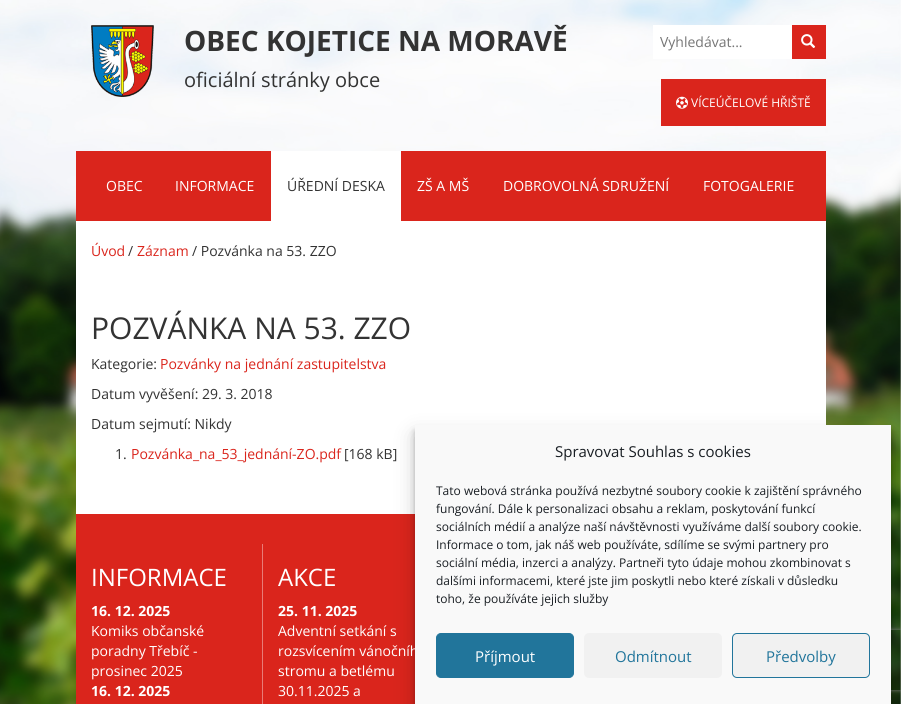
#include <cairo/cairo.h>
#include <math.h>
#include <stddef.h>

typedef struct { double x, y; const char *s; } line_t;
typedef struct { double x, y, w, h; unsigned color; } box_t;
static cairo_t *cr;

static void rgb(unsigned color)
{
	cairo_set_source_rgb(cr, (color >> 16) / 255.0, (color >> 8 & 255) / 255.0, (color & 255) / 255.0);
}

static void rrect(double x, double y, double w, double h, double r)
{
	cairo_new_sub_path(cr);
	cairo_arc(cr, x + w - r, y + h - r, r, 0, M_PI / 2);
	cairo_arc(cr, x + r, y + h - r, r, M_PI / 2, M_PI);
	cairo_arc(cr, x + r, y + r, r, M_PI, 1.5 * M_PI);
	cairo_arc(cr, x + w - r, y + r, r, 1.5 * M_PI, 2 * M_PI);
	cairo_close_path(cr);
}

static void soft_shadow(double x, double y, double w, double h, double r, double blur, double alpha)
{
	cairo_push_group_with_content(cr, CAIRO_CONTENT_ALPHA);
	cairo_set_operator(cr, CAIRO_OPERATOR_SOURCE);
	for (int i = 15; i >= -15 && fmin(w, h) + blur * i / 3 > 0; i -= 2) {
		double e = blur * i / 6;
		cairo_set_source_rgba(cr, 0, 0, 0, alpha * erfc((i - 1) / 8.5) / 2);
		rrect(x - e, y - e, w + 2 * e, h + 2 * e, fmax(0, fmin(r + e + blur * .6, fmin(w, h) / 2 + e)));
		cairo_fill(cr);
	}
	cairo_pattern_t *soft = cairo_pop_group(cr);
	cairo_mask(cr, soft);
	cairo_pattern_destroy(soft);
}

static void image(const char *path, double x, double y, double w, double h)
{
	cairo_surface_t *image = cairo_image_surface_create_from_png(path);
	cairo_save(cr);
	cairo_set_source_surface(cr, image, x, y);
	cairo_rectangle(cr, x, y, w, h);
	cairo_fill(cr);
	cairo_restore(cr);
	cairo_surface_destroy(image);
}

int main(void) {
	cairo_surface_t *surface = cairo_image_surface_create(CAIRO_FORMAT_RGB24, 901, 704);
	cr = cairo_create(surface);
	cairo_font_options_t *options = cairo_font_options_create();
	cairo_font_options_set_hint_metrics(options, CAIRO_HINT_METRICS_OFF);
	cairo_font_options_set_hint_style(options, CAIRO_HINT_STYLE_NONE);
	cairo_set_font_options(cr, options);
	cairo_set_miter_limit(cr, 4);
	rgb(0xffffff);
	cairo_paint(cr);
	image("img/1.png", 0, 0, 901, 704);
	image("img/2.png", 91, 25, 63, 72);
	rgb(0xffffff);
	cairo_rectangle(cr, 653, 25, 139, 34);
	cairo_fill(cr);
	rgb(0xda251c);
	cairo_rectangle(cr, 792, 25, 34, 34);
	cairo_fill(cr);
	image("img/3.png", 801, 34, 15, 14);
	cairo_rectangle(cr, 661, 79, 165, 47);
	cairo_fill(cr);
	image("img/4.png", 676, 96, 12, 13);
	{
		static const box_t items[] = {
			{76, 151, 750, 70, 0xda251c},
			{271, 151, 130, 70, 0xffffff},
			{76, 221, 750, 293, 0xffffff},
			{76, 514, 339, 190, 0xda251c},
			{262, 544, 1, 160, 0xe97c77},
		};
		for (size_t i = 0; i < sizeof items / sizeof *items; i++) {
			rgb(items[i].color);
			cairo_rectangle(cr, items[i].x, items[i].y, items[i].w, items[i].h);
			cairo_fill(cr);
		}
	}
	rgb(0x000000);
	soft_shadow(415, 431, 476, 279, 0, 3, 0.23);
	soft_shadow(415, 435, 476, 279, 0, 10, 0.19);
	cairo_save(cr);
	cairo_set_fill_rule(cr, CAIRO_FILL_RULE_EVEN_ODD);
	cairo_new_path(cr);
	cairo_move_to(cr, 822, 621);
	cairo_line_to(cr, 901, 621);
	cairo_line_to(cr, 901, 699);
	cairo_line_to(cr, 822, 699);
	cairo_close_path(cr);
	cairo_move_to(cr, 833, 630);
	cairo_line_to(cr, 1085, 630);
	cairo_curve_to(cr, 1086, 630, 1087, 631, 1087, 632);
	cairo_line_to(cr, 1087, 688);
	cairo_curve_to(cr, 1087, 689, 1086, 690, 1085, 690);
	cairo_line_to(cr, 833, 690);
	cairo_curve_to(cr, 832, 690, 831, 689, 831, 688);
	cairo_line_to(cr, 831, 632);
	cairo_curve_to(cr, 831, 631, 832, 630, 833, 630);
	cairo_close_path(cr);
	cairo_clip(cr);
	rgb(0x808080);
	soft_shadow(831, 630, 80, 60, 2, 2.5, 1);
	cairo_restore(cr);
	cairo_select_font_face(cr, "Open Sans", CAIRO_FONT_SLANT_NORMAL, CAIRO_FONT_WEIGHT_BOLD);
	cairo_set_font_size(cr, 28);
	rgb(0x333333);
	cairo_move_to(cr, 184, 51);
	cairo_show_text(cr, "OBEC KOJETICE NA MORAVĚ");
	cairo_select_font_face(cr, "Open Sans", CAIRO_FONT_SLANT_NORMAL, CAIRO_FONT_WEIGHT_NORMAL);
	cairo_set_font_size(cr, 20);
	cairo_move_to(cr, 184, 87);
	cairo_show_text(cr, "oficiální stránky obce");
	cairo_set_font_size(cr, 14);
	rgb(0x757575);
	cairo_move_to(cr, 660, 47);
	cairo_show_text(cr, "Vyhledávat...");
	cairo_set_font_size(cr, 12);
	rgb(0xffffff);
	cairo_move_to(cr, 691, 107);
	cairo_show_text(cr, "VÍCEÚČELOVÉ HŘIŠTĚ");
	cairo_set_font_size(cr, 14);
	cairo_move_to(cr, 106, 191);
	cairo_show_text(cr, "OBEC");
	cairo_move_to(cr, 175, 191);
	cairo_show_text(cr, "INFORMACE");
	rgb(0x333333);
	cairo_move_to(cr, 287, 191);
	cairo_show_text(cr, "ÚŘEDNÍ DESKA");
	rgb(0xffffff);
	{
		static const line_t items[] = {
			{417, 191, "ZŠ A MŠ"},
			{503, 191, "DOBROVOLNÁ SDRUŽENÍ"},
			{703, 191, "FOTOGALERIE"},
		};
		for (size_t i = 0; i < sizeof items / sizeof *items; i++) {
			cairo_move_to(cr, items[i].x, items[i].y);
			cairo_show_text(cr, items[i].s);
		}
	}
	rgb(0xda251c);
	cairo_move_to(cr, 91, 256);
	cairo_show_text(cr, "Úvod");
	rgb(0x333333);
	cairo_move_to(cr, 128, 256);
	cairo_show_text(cr, "/");
	rgb(0xda251c);
	cairo_move_to(cr, 137, 256);
	cairo_show_text(cr, "Záznam");
	rgb(0x333333);
	cairo_move_to(cr, 192, 256);
	cairo_show_text(cr, "/ Pozvánka na 53. ZZO");
	cairo_set_font_size(cr, 30);
	cairo_move_to(cr, 91, 339);
	cairo_show_text(cr, "POZVÁNKA NA 53. ZZO");
	cairo_set_font_size(cr, 14);
	cairo_move_to(cr, 91, 369);
	cairo_show_text(cr, "Kategorie:");
	rgb(0xda251c);
	cairo_move_to(cr, 160, 369);
	cairo_show_text(cr, "Pozvánky na jednání zastupitelstva");
	rgb(0x333333);
	{
		static const line_t items[] = {
			{91, 399, "Datum vyvěšení: 29. 3. 2018"},
			{91, 429, "Datum sejmutí: Nikdy"},
			{115, 459, "1."},
		};
		for (size_t i = 0; i < sizeof items / sizeof *items; i++) {
			cairo_move_to(cr, items[i].x, items[i].y);
			cairo_show_text(cr, items[i].s);
		}
	}
	rgb(0xda251c);
	cairo_move_to(cr, 131, 459);
	cairo_show_text(cr, "Pozvánka_na_53_jednání-ZO.pdf");
	rgb(0x333333);
	cairo_move_to(cr, 344, 459);
	cairo_show_text(cr, "[168 kB]");
	cairo_set_font_size(cr, 24);
	rgb(0xffffff);
	cairo_move_to(cr, 91, 586);
	cairo_show_text(cr, "INFORMACE");
	cairo_select_font_face(cr, "Open Sans", CAIRO_FONT_SLANT_NORMAL, CAIRO_FONT_WEIGHT_BOLD);
	cairo_set_font_size(cr, 14);
	cairo_move_to(cr, 91, 616);
	cairo_show_text(cr, "16. 12. 2025");
	cairo_select_font_face(cr, "Open Sans", CAIRO_FONT_SLANT_NORMAL, CAIRO_FONT_WEIGHT_NORMAL);
	{
		static const line_t items[] = {
			{91, 636, "Komiks občanské"},
			{91, 656, "poradny Třebíč -"},
			{91, 676, "prosinec 2025"},
		};
		for (size_t i = 0; i < sizeof items / sizeof *items; i++) {
			cairo_move_to(cr, items[i].x, items[i].y);
			cairo_show_text(cr, items[i].s);
		}
	}
	cairo_select_font_face(cr, "Open Sans", CAIRO_FONT_SLANT_NORMAL, CAIRO_FONT_WEIGHT_BOLD);
	cairo_move_to(cr, 91, 696);
	cairo_show_text(cr, "16. 12. 2025");
	cairo_select_font_face(cr, "Open Sans", CAIRO_FONT_SLANT_NORMAL, CAIRO_FONT_WEIGHT_NORMAL);
	cairo_set_font_size(cr, 24);
	cairo_move_to(cr, 278, 586);
	cairo_show_text(cr, "AKCE");
	cairo_select_font_face(cr, "Open Sans", CAIRO_FONT_SLANT_NORMAL, CAIRO_FONT_WEIGHT_BOLD);
	cairo_set_font_size(cr, 14);
	cairo_move_to(cr, 278, 616);
	cairo_show_text(cr, "25. 11. 2025");
	cairo_select_font_face(cr, "Open Sans", CAIRO_FONT_SLANT_NORMAL, CAIRO_FONT_WEIGHT_NORMAL);
	{
		static const line_t items[] = {
			{278, 636, "Adventní setkání s"},
			{278, 656, "rozsvícením vánočníh"},
			{278, 676, "stromu a betlému"},
			{278, 696, "30.11.2025 a"},
		};
		for (size_t i = 0; i < sizeof items / sizeof *items; i++) {
			cairo_move_to(cr, items[i].x, items[i].y);
			cairo_show_text(cr, items[i].s);
		}
	}
	rgb(0xf9f9f9);
	cairo_rectangle(cr, 415, 425, 476, 279);
	cairo_fill(cr);
	cairo_set_font_size(cr, 15);
	rgb(0x191e23);
	cairo_move_to(cr, 555, 457);
	cairo_show_text(cr, "Spravovat Souhlas s cookies");
	cairo_set_font_size(cr, 12);
	{
		static const line_t items[] = {
			{436, 495, "Tato webová stránka používá nezbytné soubory cookie k zajištění správného"},
			{436, 513, "fungování. Dále k personalizaci obsahu a reklam, poskytování funkcí"},
			{436, 531, "sociálních médií a analýze naší návštěvnosti využíváme další soubory cookie."},
			{436, 549, "Informace o tom, jak náš web používáte, sdílíme se svými partnery pro"},
			{436, 567, "sociální média, inzerci a analýzy. Partneři tyto údaje mohou zkombinovat s"},
			{436, 585, "dalšími informacemi, které jste jim poskytli nebo které získali v důsledku"},
			{436, 603, "toho, že používáte jejich služby"},
		};
		for (size_t i = 0; i < sizeof items / sizeof *items; i++) {
			cairo_move_to(cr, items[i].x, items[i].y);
			cairo_show_text(cr, items[i].s);
		}
	}
	rgb(0x21759b);
	rrect(436.5, 633.5, 137, 44, 4.5);
	cairo_fill_preserve(cr);
	cairo_set_line_width(cr, 1);
	cairo_stroke(cr);
	cairo_set_font_size(cr, 15);
	rgb(0xffffff);
	cairo_move_to(cr, 475, 662);
	cairo_show_text(cr, "Příjmout");
	rgb(0xf1f1f1);
	rrect(584, 633, 138, 45, 5);
	cairo_fill(cr);
	rgb(0x21759b);
	cairo_move_to(cr, 615, 662);
	cairo_show_text(cr, "Odmítnout");
	rgb(0xf1f1f1);
	rrect(732.5, 633.5, 137, 44, 4.5);
	cairo_fill_preserve(cr);
	rgb(0x21759b);
	cairo_stroke(cr);
	cairo_move_to(cr, 766, 662);
	cairo_show_text(cr, "Předvolby");
	cairo_surface_write_to_png(surface, "page.png");
	cairo_font_options_destroy(options);
	cairo_destroy(cr);
	cairo_surface_destroy(surface);
	return 0;
}
